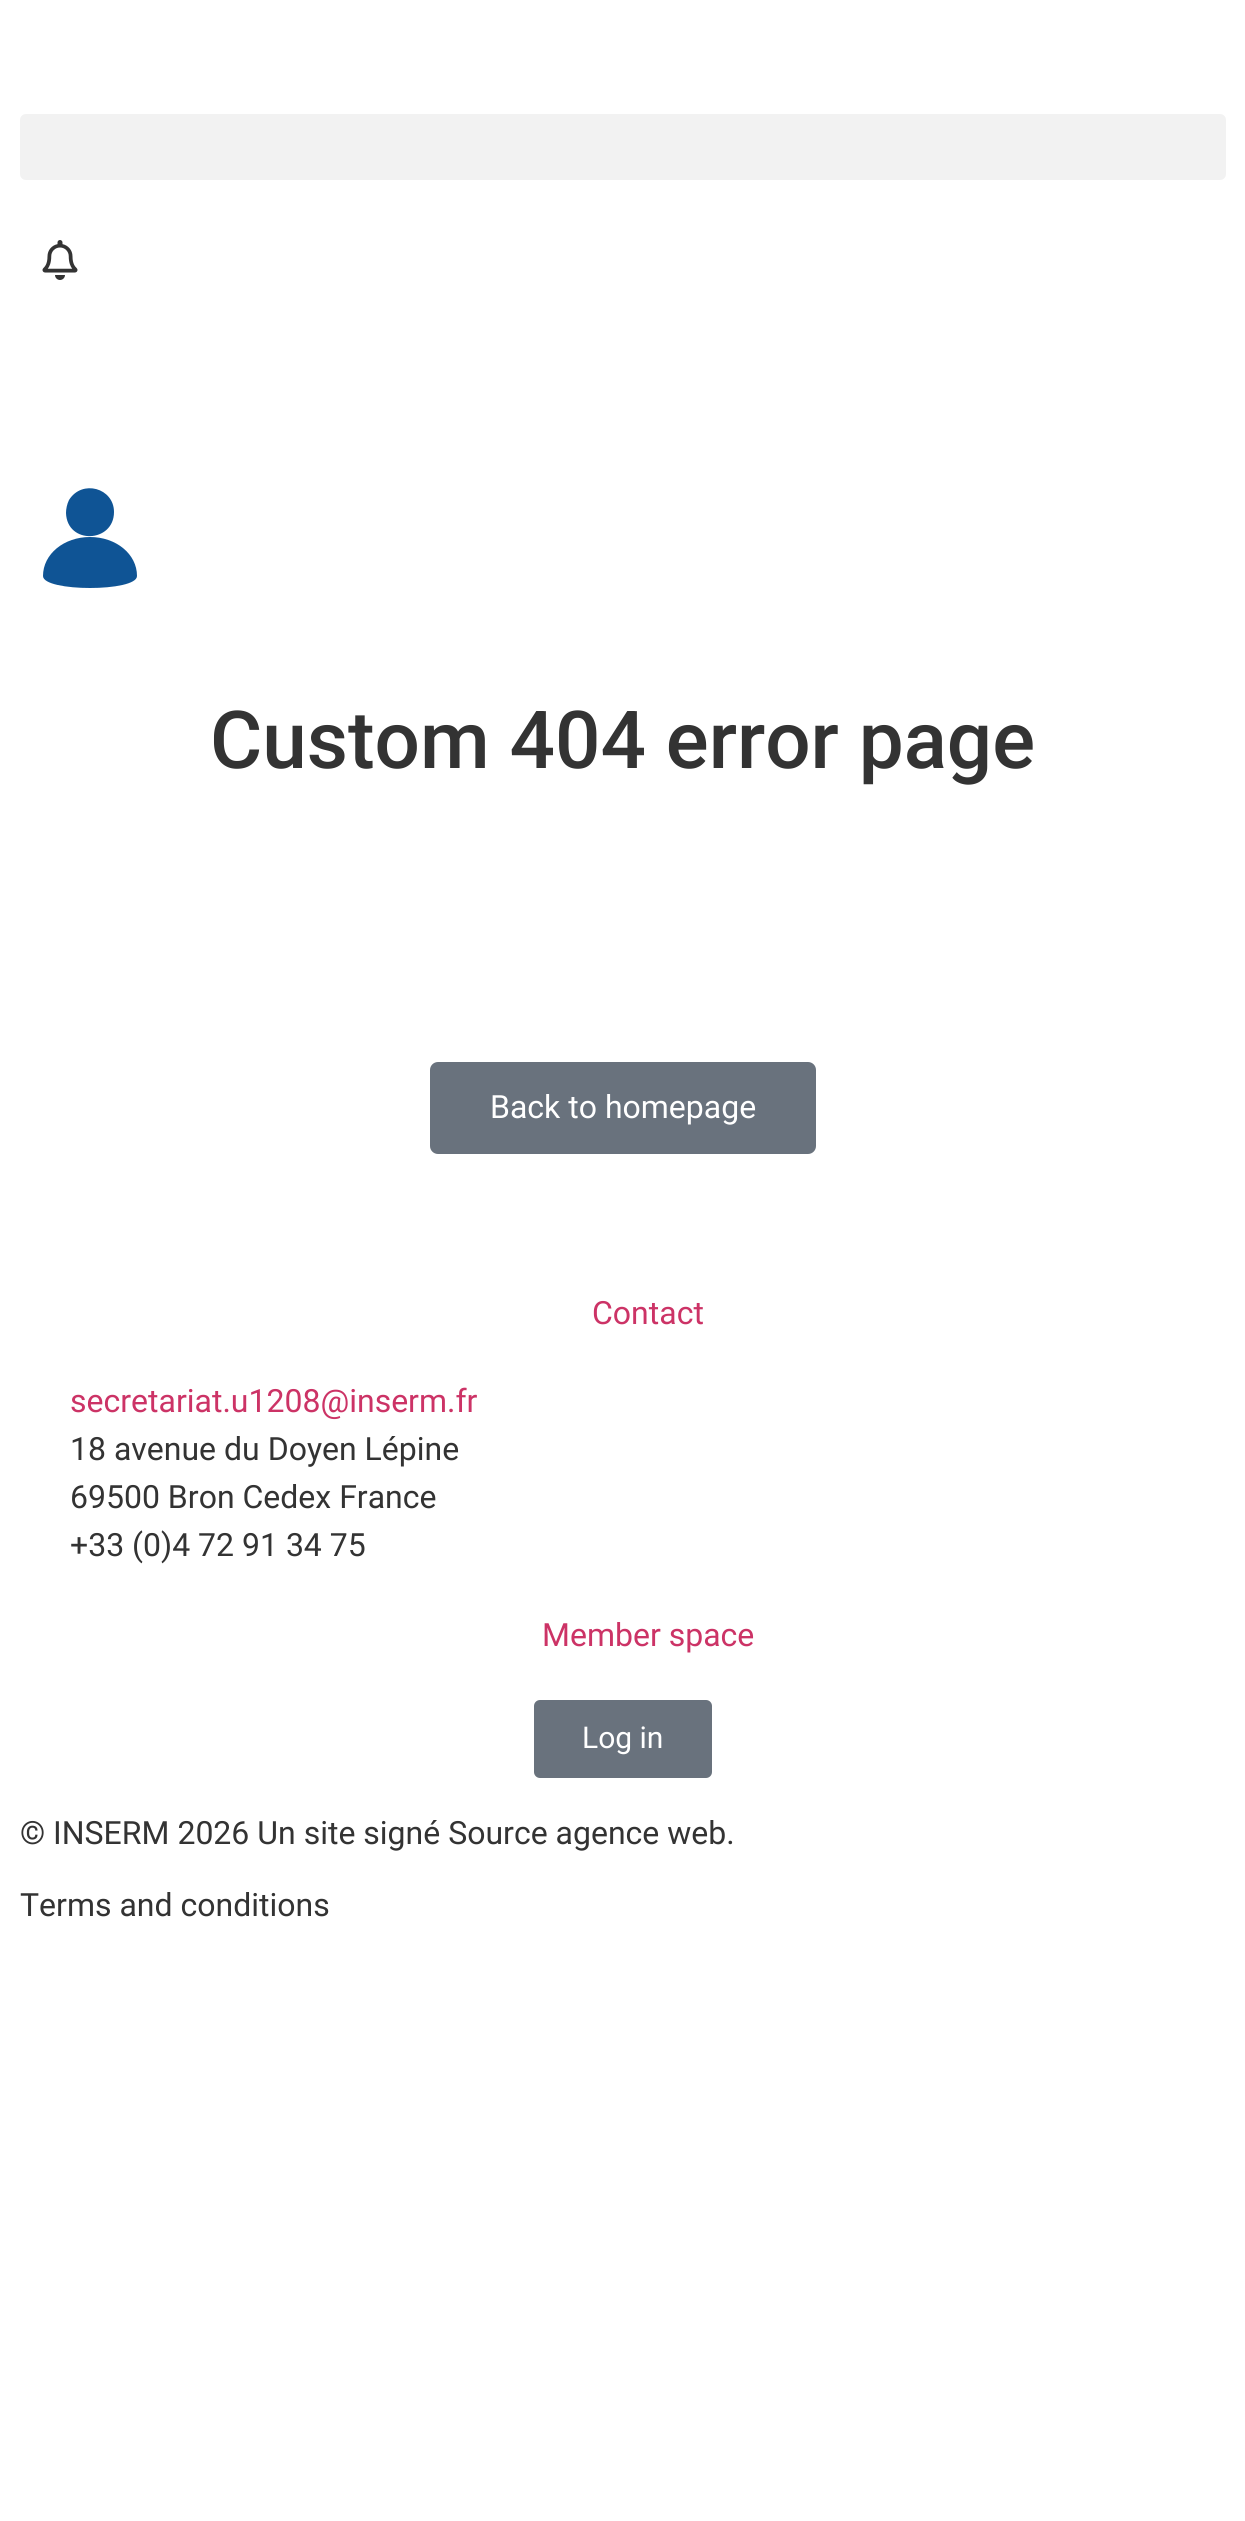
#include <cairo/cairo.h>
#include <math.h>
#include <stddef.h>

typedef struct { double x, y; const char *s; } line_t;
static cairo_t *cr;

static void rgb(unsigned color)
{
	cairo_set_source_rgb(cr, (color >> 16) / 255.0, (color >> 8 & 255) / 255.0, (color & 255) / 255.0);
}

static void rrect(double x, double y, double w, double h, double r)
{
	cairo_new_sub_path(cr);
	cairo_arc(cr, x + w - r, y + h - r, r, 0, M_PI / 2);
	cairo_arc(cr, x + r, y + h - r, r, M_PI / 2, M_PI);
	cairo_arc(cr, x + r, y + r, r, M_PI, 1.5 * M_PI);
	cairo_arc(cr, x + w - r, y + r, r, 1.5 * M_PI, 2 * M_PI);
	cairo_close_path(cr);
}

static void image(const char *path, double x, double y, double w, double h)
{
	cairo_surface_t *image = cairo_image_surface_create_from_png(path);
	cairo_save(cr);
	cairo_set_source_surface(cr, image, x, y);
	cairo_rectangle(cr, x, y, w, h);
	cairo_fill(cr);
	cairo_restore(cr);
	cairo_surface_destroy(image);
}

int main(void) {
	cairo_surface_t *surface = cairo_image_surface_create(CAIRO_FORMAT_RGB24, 1245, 2521);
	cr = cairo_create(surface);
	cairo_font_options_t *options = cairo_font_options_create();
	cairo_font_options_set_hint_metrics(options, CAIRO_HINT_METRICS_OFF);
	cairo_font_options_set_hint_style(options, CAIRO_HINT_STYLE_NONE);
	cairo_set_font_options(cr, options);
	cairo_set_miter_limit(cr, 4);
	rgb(0xffffff);
	cairo_paint(cr);
	rgb(0xf2f2f2);
	rrect(20, 114, 1206, 66, 6);
	cairo_fill(cr);
	image("img/1.png", 42, 240, 36, 40);
	rgb(0x0f5495);
	cairo_new_path(cr);
	cairo_move_to(cr, 114, 512);
	cairo_curve_to(cr, 114, 543, 67, 545, 66, 513);
	cairo_curve_to(cr, 66, 509, 67, 504, 69, 500);
	cairo_curve_to(cr, 82, 479, 114, 488, 114, 512);
	cairo_fill(cr);
	cairo_new_path(cr);
	cairo_move_to(cr, 137, 576);
	cairo_curve_to(cr, 137, 554, 116, 537, 90, 537);
	cairo_curve_to(cr, 64, 537, 43, 554, 43, 576);
	cairo_curve_to(cr, 43, 592, 137, 592, 137, 576);
	cairo_close_path(cr);
	cairo_fill(cr);
	rgb(0x69727d);
	rrect(430, 1062, 386, 92, 8);
	cairo_fill(cr);
	rrect(534, 1700, 178, 78, 6);
	cairo_fill(cr);
	cairo_select_font_face(cr, "Roboto Medium", CAIRO_FONT_SLANT_NORMAL, CAIRO_FONT_WEIGHT_NORMAL);
	cairo_set_font_size(cr, 80);
	rgb(0x333333);
	cairo_move_to(cr, 210, 768);
	cairo_show_text(cr, "Custom 404 error page");
	cairo_select_font_face(cr, "Roboto", CAIRO_FONT_SLANT_NORMAL, CAIRO_FONT_WEIGHT_NORMAL);
	cairo_set_font_size(cr, 32);
	rgb(0xffffff);
	cairo_move_to(cr, 490, 1118);
	cairo_show_text(cr, "Back to homepage");
	rgb(0xcc3366);
	cairo_move_to(cr, 592, 1324);
	cairo_show_text(cr, "Contact");
	cairo_move_to(cr, 70, 1412);
	cairo_show_text(cr, "secretariat.u1208@inserm.fr");
	rgb(0x333333);
	{
		static const line_t items[] = {
			{70, 1460, "18 avenue du Doyen Lépine"},
			{70, 1508, "69500 Bron Cedex France"},
			{70, 1556, "+33 (0)4 72 91 34 75"},
		};
		for (size_t i = 0; i < sizeof items / sizeof *items; i++) {
			cairo_move_to(cr, items[i].x, items[i].y);
			cairo_show_text(cr, items[i].s);
		}
	}
	rgb(0xcc3366);
	cairo_move_to(cr, 542, 1646);
	cairo_show_text(cr, "Member space");
	cairo_set_font_size(cr, 30);
	rgb(0xffffff);
	cairo_move_to(cr, 582, 1748);
	cairo_show_text(cr, "Log in");
	cairo_set_font_size(cr, 32);
	rgb(0x333333);
	cairo_move_to(cr, 20, 1844);
	cairo_show_text(cr, "© INSERM 2026 Un site signé Source agence web.");
	cairo_move_to(cr, 20, 1916);
	cairo_show_text(cr, "Terms and conditions");
	cairo_surface_write_to_png(surface, "page.png");
	cairo_font_options_destroy(options);
	cairo_destroy(cr);
	cairo_surface_destroy(surface);
	return 0;
}
